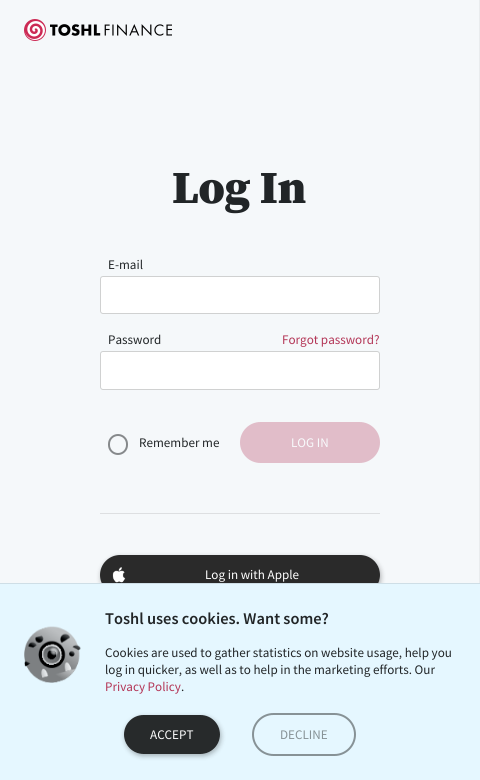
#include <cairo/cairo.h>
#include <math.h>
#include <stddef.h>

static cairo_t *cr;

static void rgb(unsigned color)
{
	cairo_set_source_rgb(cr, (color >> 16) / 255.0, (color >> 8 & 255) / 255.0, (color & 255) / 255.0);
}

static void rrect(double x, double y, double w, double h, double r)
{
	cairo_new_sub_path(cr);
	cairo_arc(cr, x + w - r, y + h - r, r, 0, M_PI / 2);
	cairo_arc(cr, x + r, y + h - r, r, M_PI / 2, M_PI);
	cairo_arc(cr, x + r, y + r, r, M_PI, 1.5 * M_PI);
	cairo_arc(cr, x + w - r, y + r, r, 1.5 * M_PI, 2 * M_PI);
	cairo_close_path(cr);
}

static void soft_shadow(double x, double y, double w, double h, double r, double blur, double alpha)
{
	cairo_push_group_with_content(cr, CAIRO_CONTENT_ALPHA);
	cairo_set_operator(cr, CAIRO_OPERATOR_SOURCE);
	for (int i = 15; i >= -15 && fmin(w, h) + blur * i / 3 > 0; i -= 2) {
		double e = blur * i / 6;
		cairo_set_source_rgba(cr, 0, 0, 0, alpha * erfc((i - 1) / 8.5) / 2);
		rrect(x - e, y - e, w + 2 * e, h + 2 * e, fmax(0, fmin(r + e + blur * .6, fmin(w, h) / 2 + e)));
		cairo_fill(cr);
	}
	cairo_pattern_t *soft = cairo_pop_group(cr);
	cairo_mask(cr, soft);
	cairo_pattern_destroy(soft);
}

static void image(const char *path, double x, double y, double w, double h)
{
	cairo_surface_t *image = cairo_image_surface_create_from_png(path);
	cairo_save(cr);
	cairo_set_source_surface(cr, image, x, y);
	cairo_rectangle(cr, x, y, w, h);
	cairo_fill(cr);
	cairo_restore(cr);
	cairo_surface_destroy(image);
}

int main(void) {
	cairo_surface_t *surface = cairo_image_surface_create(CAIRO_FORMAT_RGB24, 480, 780);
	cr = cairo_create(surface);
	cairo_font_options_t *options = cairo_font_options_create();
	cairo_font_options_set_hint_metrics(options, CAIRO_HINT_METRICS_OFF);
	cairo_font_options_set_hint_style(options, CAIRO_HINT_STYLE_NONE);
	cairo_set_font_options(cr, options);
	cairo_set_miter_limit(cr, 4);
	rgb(0xf5f8fa);
	cairo_paint(cr);
	rgb(0xe9ecee);
	cairo_rectangle(cr, 479, 0, 1, 583);
	cairo_fill(cr);
	image("img/1.png", 24, 19, 22, 22);
	image("img/2.png", 50, 24, 122, 12);
	rgb(0xffffff);
	rrect(100, 276, 280, 38, 3);
	cairo_fill(cr);
	rrect(100.5, 276.5, 279, 37, 2.5);
	cairo_set_source_rgba(cr, 0.086, 0.102, 0.11, 0.2);
	cairo_set_line_width(cr, 1);
	cairo_stroke(cr);
	rgb(0xffffff);
	rrect(100, 351, 280, 39, 3);
	cairo_fill(cr);
	rrect(100.5, 351.5, 279, 38, 2.5);
	cairo_set_source_rgba(cr, 0.086, 0.102, 0.11, 0.2);
	cairo_stroke(cr);
	rrect(109, 435, 18, 19, 9);
	rgb(0x86898b);
	cairo_set_line_width(cr, 2);
	cairo_stroke(cr);
	rgb(0xe1bdc9);
	rrect(240, 422, 140, 41, 20.5);
	cairo_fill(cr);
	rgb(0xdddfe1);
	cairo_rectangle(cr, 100, 513, 280, 1);
	cairo_fill(cr);
	cairo_save(cr);
	cairo_set_fill_rule(cr, CAIRO_FILL_RULE_EVEN_ODD);
	cairo_new_path(cr);
	cairo_move_to(cr, 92, 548);
	cairo_line_to(cr, 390, 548);
	cairo_line_to(cr, 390, 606);
	cairo_line_to(cr, 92, 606);
	cairo_close_path(cr);
	cairo_move_to(cr, 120, 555);
	cairo_line_to(cr, 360, 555);
	cairo_curve_to(cr, 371, 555, 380, 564, 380, 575);
	cairo_curve_to(cr, 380, 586, 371, 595, 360, 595);
	cairo_line_to(cr, 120, 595);
	cairo_curve_to(cr, 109, 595, 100, 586, 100, 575);
	cairo_curve_to(cr, 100, 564, 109, 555, 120, 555);
	cairo_close_path(cr);
	cairo_clip(cr);
	rgb(0x0a0a0a);
	soft_shadow(101, 557, 280, 40, 20, 2.5, 0.3);
	cairo_restore(cr);
	cairo_set_source_rgba(cr, 0.039, 0.039, 0.039, 0.86);
	rrect(100, 555, 280, 40, 20);
	cairo_fill(cr);
	image("img/3.png", 112, 567, 14, 16);
	rgb(0xe5f7ff);
	cairo_rectangle(cr, 0, 584, 480, 196);
	cairo_fill(cr);
	rgb(0xcedee6);
	cairo_rectangle(cr, 0, 583, 480, 1);
	cairo_fill(cr);
	image("img/4.png", 24, 626, 57, 57);
	cairo_save(cr);
	cairo_set_fill_rule(cr, CAIRO_FILL_RULE_EVEN_ODD);
	cairo_new_path(cr);
	cairo_move_to(cr, 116, 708);
	cairo_line_to(cr, 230, 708);
	cairo_line_to(cr, 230, 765);
	cairo_line_to(cr, 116, 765);
	cairo_close_path(cr);
	cairo_move_to(cr, 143.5, 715);
	cairo_line_to(cr, 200.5, 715);
	cairo_curve_to(cr, 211.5, 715, 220, 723.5, 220, 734.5);
	cairo_curve_to(cr, 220, 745.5, 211.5, 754, 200.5, 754);
	cairo_line_to(cr, 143.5, 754);
	cairo_curve_to(cr, 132.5, 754, 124, 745.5, 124, 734.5);
	cairo_curve_to(cr, 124, 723.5, 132.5, 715, 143.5, 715);
	cairo_close_path(cr);
	cairo_clip(cr);
	rgb(0x0a0a0a);
	soft_shadow(125, 717, 96, 39, 19.5, 2.5, 0.3);
	cairo_restore(cr);
	cairo_set_source_rgba(cr, 0.039, 0.039, 0.039, 0.86);
	rrect(124, 715, 96, 39, 19.5);
	cairo_fill(cr);
	rrect(253, 714, 102, 41, 20.5);
	rgb(0x879296);
	cairo_stroke(cr);
	cairo_select_font_face(cr, "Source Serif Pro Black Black", CAIRO_FONT_SLANT_NORMAL, CAIRO_FONT_WEIGHT_NORMAL);
	cairo_set_font_size(cr, 46);
	rgb(0x212527);
	cairo_move_to(cr, 172, 203);
	cairo_show_text(cr, "Log In");
	cairo_select_font_face(cr, "Source Sans Pro", CAIRO_FONT_SLANT_NORMAL, CAIRO_FONT_WEIGHT_NORMAL);
	cairo_set_font_size(cr, 13.1);
	cairo_move_to(cr, 108, 269);
	cairo_show_text(cr, "E-mail");
	cairo_move_to(cr, 108, 344);
	cairo_show_text(cr, "Password");
	rgb(0xb33556);
	cairo_move_to(cr, 282, 344);
	cairo_show_text(cr, "Forgot password?");
	rgb(0x212527);
	cairo_move_to(cr, 139, 447);
	cairo_show_text(cr, "Remember me");
	rgb(0xf8fafc);
	cairo_move_to(cr, 291, 447);
	cairo_show_text(cr, "LOG IN");
	rgb(0xffffff);
	cairo_move_to(cr, 205, 579);
	cairo_show_text(cr, "Log in with Apple");
	cairo_select_font_face(cr, "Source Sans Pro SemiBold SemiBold", CAIRO_FONT_SLANT_NORMAL, CAIRO_FONT_WEIGHT_NORMAL);
	cairo_set_font_size(cr, 16.4);
	rgb(0x212527);
	cairo_move_to(cr, 105, 624);
	cairo_show_text(cr, "Toshl uses cookies. Want some?");
	cairo_select_font_face(cr, "Source Sans Pro", CAIRO_FONT_SLANT_NORMAL, CAIRO_FONT_WEIGHT_NORMAL);
	cairo_set_font_size(cr, 13.1);
	cairo_move_to(cr, 105, 657);
	cairo_show_text(cr, "Cookies are used to gather statistics on website usage, help you");
	cairo_move_to(cr, 105, 674);
	cairo_show_text(cr, "log in quicker, as well as to help in the marketing efforts. Our");
	rgb(0xb33556);
	cairo_move_to(cr, 105, 691);
	cairo_show_text(cr, "Privacy Policy");
	rgb(0x212527);
	cairo_move_to(cr, 181, 691);
	cairo_show_text(cr, ".");
	rgb(0xffffff);
	cairo_move_to(cr, 150, 739);
	cairo_show_text(cr, "ACCEPT");
	rgb(0x879296);
	cairo_move_to(cr, 280, 739);
	cairo_show_text(cr, "DECLINE");
	cairo_surface_write_to_png(surface, "page.png");
	cairo_font_options_destroy(options);
	cairo_destroy(cr);
	cairo_surface_destroy(surface);
	return 0;
}
